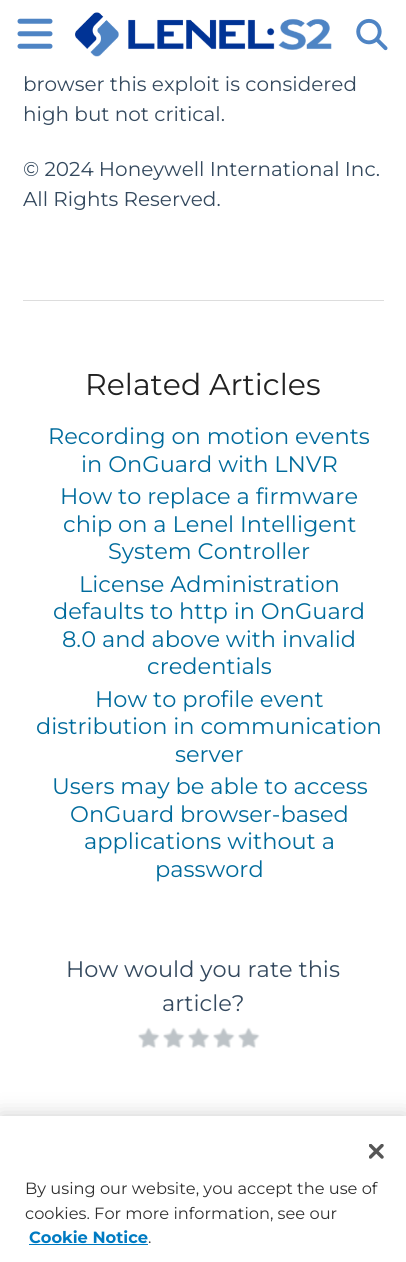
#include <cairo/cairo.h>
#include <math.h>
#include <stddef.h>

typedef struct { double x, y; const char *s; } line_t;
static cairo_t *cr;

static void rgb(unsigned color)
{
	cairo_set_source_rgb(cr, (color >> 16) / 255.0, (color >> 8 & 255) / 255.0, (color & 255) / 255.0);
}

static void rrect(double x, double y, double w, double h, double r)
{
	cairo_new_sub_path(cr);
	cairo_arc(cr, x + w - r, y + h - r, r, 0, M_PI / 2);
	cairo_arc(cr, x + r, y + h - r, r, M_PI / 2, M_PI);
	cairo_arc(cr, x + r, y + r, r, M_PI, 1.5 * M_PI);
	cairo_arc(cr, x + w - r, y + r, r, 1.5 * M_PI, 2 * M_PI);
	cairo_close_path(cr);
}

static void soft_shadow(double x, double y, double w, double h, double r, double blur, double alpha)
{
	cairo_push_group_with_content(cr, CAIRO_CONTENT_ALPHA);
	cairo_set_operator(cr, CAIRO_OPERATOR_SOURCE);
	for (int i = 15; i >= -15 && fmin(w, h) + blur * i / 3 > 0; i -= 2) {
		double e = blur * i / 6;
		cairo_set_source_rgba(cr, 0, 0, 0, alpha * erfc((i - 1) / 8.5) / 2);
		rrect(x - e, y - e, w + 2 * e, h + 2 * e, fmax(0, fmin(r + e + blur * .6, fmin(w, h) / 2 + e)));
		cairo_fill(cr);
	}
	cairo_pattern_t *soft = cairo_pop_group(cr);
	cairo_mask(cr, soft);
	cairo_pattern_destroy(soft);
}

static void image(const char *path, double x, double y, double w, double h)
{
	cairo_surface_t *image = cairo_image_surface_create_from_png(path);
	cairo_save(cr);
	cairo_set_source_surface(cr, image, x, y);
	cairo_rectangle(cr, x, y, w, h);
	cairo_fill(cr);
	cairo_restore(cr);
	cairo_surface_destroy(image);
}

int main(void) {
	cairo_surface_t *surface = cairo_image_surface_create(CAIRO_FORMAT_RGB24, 406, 1262);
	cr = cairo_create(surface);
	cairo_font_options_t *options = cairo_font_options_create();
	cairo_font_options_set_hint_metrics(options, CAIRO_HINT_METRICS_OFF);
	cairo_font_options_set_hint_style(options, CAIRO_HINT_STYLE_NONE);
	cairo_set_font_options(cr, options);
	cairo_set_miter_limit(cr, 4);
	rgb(0xffffff);
	cairo_paint(cr);
	image("img/1.png", 17, 18, 36, 31);
	image("img/2.png", 75, 12, 257, 45);
	image("img/3.png", 356, 18, 32, 33);
	rgb(0xdddddd);
	cairo_rectangle(cr, 23, 300, 361, 1);
	cairo_fill(cr);
	image("img/4.png", 138, 1027, 22, 21);
	image("img/4.png", 163, 1027, 22, 21);
	image("img/4.png", 188, 1027, 22, 21);
	image("img/4.png", 213, 1027, 22, 21);
	image("img/4.png", 238, 1027, 22, 21);
	rgb(0x000000);
	soft_shadow(0, 1116, 406, 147, 0, 11, 0.2);
	rgb(0xffffff);
	cairo_rectangle(cr, 0, 1116, 406, 146);
	cairo_fill(cr);
	image("img/5.png", 369, 1144, 15, 15);
	rgb(0x007bc2);
	cairo_rectangle(cr, 29, 1244, 119, 1);
	cairo_fill(cr);
	cairo_select_font_face(cr, "Montserrat Thin", CAIRO_FONT_SLANT_NORMAL, CAIRO_FONT_WEIGHT_NORMAL);
	cairo_set_font_size(cr, 20);
	rgb(0x34495e);
	{
		static const line_t items[] = {
			{23, 91, "browser this exploit is considered"},
			{23, 121, "high but not critical."},
			{23, 176, "© 2024 Honeywell International Inc."},
			{23, 206, "All Rights Reserved."},
		};
		for (size_t i = 0; i < sizeof items / sizeof *items; i++) {
			cairo_move_to(cr, items[i].x, items[i].y);
			cairo_show_text(cr, items[i].s);
		}
	}
	cairo_set_font_size(cr, 30);
	rgb(0x212121);
	cairo_move_to(cr, 85, 395);
	cairo_show_text(cr, "Related Articles");
	cairo_set_font_size(cr, 22.5);
	rgb(0x006b9c);
	{
		static const line_t items[] = {
			{48, 444, "Recording on motion events"},
			{81, 472, "in OnGuard with LNVR"},
			{60, 504, "How to replace a firmware"},
			{63, 532, "chip on a Lenel Intelligent"},
			{108, 559, "System Controller"},
			{79, 592, "License Administration"},
			{53, 619, "defaults to http in OnGuard"},
			{62, 647, "8.0 and above with invalid"},
			{147, 674, "credentials"},
			{95, 707, "How to profile event"},
			{36, 734, "distribution in communication"},
			{175, 762, "server"},
			{52, 794, "Users may be able to access"},
			{70, 822, "OnGuard browser-based"},
			{84, 849, "applications without a"},
			{155, 877, "password"},
		};
		for (size_t i = 0; i < sizeof items / sizeof *items; i++) {
			cairo_move_to(cr, items[i].x, items[i].y);
			cairo_show_text(cr, items[i].s);
		}
	}
	rgb(0x34495e);
	cairo_move_to(cr, 66, 977);
	cairo_show_text(cr, "How would you rate this");
	cairo_move_to(cr, 162, 1011);
	cairo_show_text(cr, "article?");
	cairo_set_font_size(cr, 16.25);
	rgb(0x303030);
	cairo_move_to(cr, 25, 1194);
	cairo_show_text(cr, "By using our website, you accept the use of");
	cairo_move_to(cr, 25, 1219);
	cairo_show_text(cr, "cookies. For more information, see our");
	cairo_select_font_face(cr, "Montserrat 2 Thin", CAIRO_FONT_SLANT_NORMAL, CAIRO_FONT_WEIGHT_NORMAL);
	rgb(0x007bc2);
	cairo_move_to(cr, 29, 1243);
	cairo_show_text(cr, "Cookie Notice");
	cairo_select_font_face(cr, "Montserrat Thin", CAIRO_FONT_SLANT_NORMAL, CAIRO_FONT_WEIGHT_NORMAL);
	rgb(0x303030);
	cairo_move_to(cr, 148, 1243);
	cairo_show_text(cr, ".");
	cairo_surface_write_to_png(surface, "page.png");
	cairo_font_options_destroy(options);
	cairo_destroy(cr);
	cairo_surface_destroy(surface);
	return 0;
}
